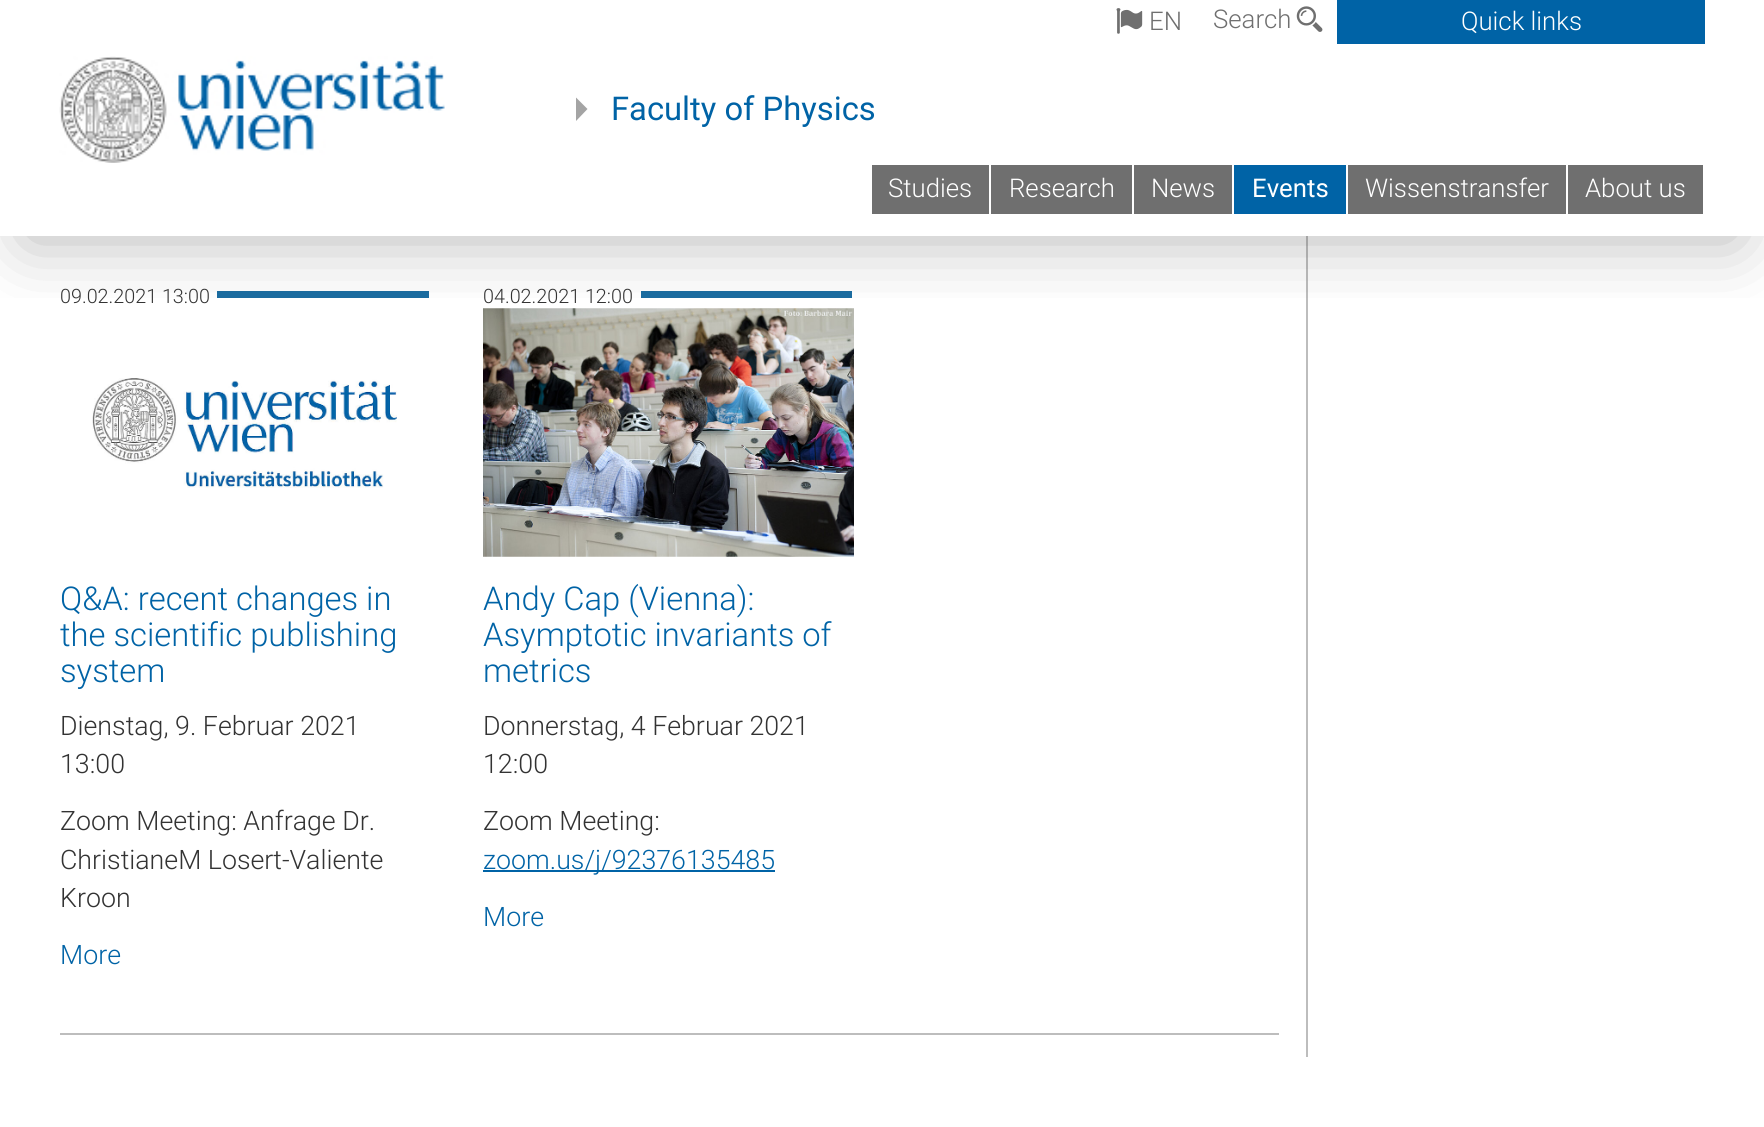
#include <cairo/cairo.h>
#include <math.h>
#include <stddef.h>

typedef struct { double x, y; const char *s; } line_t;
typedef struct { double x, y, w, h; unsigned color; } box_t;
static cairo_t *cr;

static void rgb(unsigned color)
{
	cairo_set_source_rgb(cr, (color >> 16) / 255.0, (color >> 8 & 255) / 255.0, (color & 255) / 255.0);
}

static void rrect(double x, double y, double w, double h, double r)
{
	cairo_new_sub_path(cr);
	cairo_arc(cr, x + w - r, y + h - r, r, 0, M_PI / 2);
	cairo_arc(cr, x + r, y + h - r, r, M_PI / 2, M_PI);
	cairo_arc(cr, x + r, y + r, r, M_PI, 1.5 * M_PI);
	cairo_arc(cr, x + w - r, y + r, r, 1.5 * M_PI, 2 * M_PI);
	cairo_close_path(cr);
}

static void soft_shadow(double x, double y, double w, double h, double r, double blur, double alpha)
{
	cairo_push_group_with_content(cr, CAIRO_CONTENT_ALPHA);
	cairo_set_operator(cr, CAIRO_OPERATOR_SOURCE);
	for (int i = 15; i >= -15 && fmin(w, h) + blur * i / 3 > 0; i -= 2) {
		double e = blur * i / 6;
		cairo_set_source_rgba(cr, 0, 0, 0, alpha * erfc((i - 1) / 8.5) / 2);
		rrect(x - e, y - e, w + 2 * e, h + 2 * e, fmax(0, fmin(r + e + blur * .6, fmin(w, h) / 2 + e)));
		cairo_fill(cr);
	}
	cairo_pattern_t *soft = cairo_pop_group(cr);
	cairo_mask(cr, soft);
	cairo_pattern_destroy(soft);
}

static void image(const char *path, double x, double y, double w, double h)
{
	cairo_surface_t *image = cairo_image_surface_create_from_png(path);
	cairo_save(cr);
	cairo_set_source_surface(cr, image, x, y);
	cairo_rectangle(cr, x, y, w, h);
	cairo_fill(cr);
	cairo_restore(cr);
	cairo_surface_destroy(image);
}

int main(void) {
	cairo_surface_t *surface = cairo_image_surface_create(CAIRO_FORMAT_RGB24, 1764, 1127);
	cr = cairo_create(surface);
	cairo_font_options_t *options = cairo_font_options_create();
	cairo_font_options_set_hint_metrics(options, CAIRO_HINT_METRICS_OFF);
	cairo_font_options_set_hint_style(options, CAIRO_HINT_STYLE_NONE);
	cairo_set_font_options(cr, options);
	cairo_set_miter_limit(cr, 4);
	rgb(0xffffff);
	cairo_paint(cr);
	{
		static const box_t items[] = {
			{1306, 236, 2, 821, 0xbdbdbd},
			{217, 291, 212, 7, 0x196ca1},
			{641, 291, 211, 7, 0x196ca1},
		};
		for (size_t i = 0; i < sizeof items / sizeof *items; i++) {
			rgb(items[i].color);
			cairo_rectangle(cr, items[i].x, items[i].y, items[i].w, items[i].h);
			cairo_fill(cr);
		}
	}
	image("img/5.png", 483, 308, 371, 249);
	cairo_save(cr);
	cairo_rectangle(cr, 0, 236, 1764, 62);
	cairo_clip(cr);
	rgb(0x464646);
	soft_shadow(26, 25, 1712, 215, 0, 35, 0.4);
	cairo_restore(cr);
	rgb(0xffffff);
	cairo_rectangle(cr, 0, 0, 16, 236);
	cairo_fill(cr);
	cairo_rectangle(cr, 1748, 0, 16, 236);
	cairo_fill(cr);
	image("img/1.png", 1116, 8, 27, 26);
	image("img/2.png", 1296, 6, 27, 26);
	rgb(0x0063a6);
	cairo_rectangle(cr, 1337, 0, 368, 44);
	cairo_fill(cr);
	image("img/3.png", 59, 56, 386, 107);
	rgb(0xa4a4a4);
	cairo_new_path(cr);
	cairo_move_to(cr, 576, 97.5);
	cairo_line_to(cr, 576, 121);
	cairo_line_to(cr, 587.5, 109);
	cairo_close_path(cr);
	cairo_fill(cr);
	{
		static const box_t items[] = {
			{872, 165, 117, 49, 0x6f6f6f},
			{991, 165, 141, 49, 0x6f6f6f},
			{1134, 165, 98, 49, 0x6f6f6f},
			{1234, 165, 112, 49, 0x0063a6},
			{1348, 165, 218, 49, 0x6f6f6f},
			{1568, 165, 135, 49, 0x6f6f6f},
		};
		for (size_t i = 0; i < sizeof items / sizeof *items; i++) {
			rgb(items[i].color);
			cairo_rectangle(cr, items[i].x, items[i].y, items[i].w, items[i].h);
			cairo_fill(cr);
		}
	}
	image("img/4.png", 92, 378, 305, 110);
	rgb(0x0063a6);
	cairo_rectangle(cr, 483, 870, 292, 2);
	cairo_fill(cr);
	rgb(0xbdbdbd);
	cairo_rectangle(cr, 60, 1033, 1219, 2);
	cairo_fill(cr);
	cairo_select_font_face(cr, "Roboto Light", CAIRO_FONT_SLANT_NORMAL, CAIRO_FONT_WEIGHT_NORMAL);
	cairo_set_font_size(cr, 25.75);
	rgb(0x6f6f6f);
	cairo_move_to(cr, 1149, 30);
	cairo_show_text(cr, "EN");
	cairo_move_to(cr, 1213, 28);
	cairo_show_text(cr, "Search");
	rgb(0xffffff);
	cairo_move_to(cr, 1461, 30);
	cairo_show_text(cr, "Quick links");
	cairo_select_font_face(cr, "Roboto", CAIRO_FONT_SLANT_NORMAL, CAIRO_FONT_WEIGHT_NORMAL);
	cairo_set_font_size(cr, 32.75);
	rgb(0x0063a6);
	cairo_move_to(cr, 611, 120);
	cairo_show_text(cr, "Faculty of Physics");
	cairo_select_font_face(cr, "Roboto Light", CAIRO_FONT_SLANT_NORMAL, CAIRO_FONT_WEIGHT_NORMAL);
	cairo_set_font_size(cr, 25.75);
	rgb(0xffffff);
	{
		static const line_t items[] = {
			{888, 197, "Studies"},
			{1009, 197, "Research"},
			{1151, 197, "News"},
		};
		for (size_t i = 0; i < sizeof items / sizeof *items; i++) {
			cairo_move_to(cr, items[i].x, items[i].y);
			cairo_show_text(cr, items[i].s);
		}
	}
	cairo_select_font_face(cr, "Roboto", CAIRO_FONT_SLANT_NORMAL, CAIRO_FONT_WEIGHT_NORMAL);
	cairo_move_to(cr, 1252, 197);
	cairo_show_text(cr, "Events");
	cairo_select_font_face(cr, "Roboto Light", CAIRO_FONT_SLANT_NORMAL, CAIRO_FONT_WEIGHT_NORMAL);
	cairo_move_to(cr, 1365, 197);
	cairo_show_text(cr, "Wissenstransfer");
	cairo_move_to(cr, 1585, 197);
	cairo_show_text(cr, "About us");
	cairo_set_font_size(cr, 19.75);
	rgb(0x333333);
	cairo_move_to(cr, 60, 303);
	cairo_show_text(cr, "09.02.2021 13:00");
	cairo_set_font_size(cr, 32.75);
	rgb(0x0063a6);
	{
		static const line_t items[] = {
			{60, 610, "Q&A: recent changes in"},
			{60, 646, "the scientific publishing"},
			{60, 682, "system"},
		};
		for (size_t i = 0; i < sizeof items / sizeof *items; i++) {
			cairo_move_to(cr, items[i].x, items[i].y);
			cairo_show_text(cr, items[i].s);
		}
	}
	cairo_set_font_size(cr, 26.75);
	rgb(0x333333);
	{
		static const line_t items[] = {
			{60, 735, "Dienstag, 9. Februar 2021"},
			{60, 773, "13:00"},
			{60, 830, "Zoom Meeting: Anfrage Dr."},
			{60, 869, "ChristianeM Losert-Valiente"},
			{60, 907, "Kroon"},
		};
		for (size_t i = 0; i < sizeof items / sizeof *items; i++) {
			cairo_move_to(cr, items[i].x, items[i].y);
			cairo_show_text(cr, items[i].s);
		}
	}
	rgb(0x0063a6);
	cairo_move_to(cr, 60, 964);
	cairo_show_text(cr, "More");
	cairo_set_font_size(cr, 19.75);
	rgb(0x333333);
	cairo_move_to(cr, 483, 303);
	cairo_show_text(cr, "04.02.2021 12:00");
	cairo_set_font_size(cr, 32.75);
	rgb(0x0063a6);
	{
		static const line_t items[] = {
			{483, 610, "Andy Cap (Vienna):"},
			{483, 646, "Asymptotic invariants of"},
			{483, 682, "metrics"},
		};
		for (size_t i = 0; i < sizeof items / sizeof *items; i++) {
			cairo_move_to(cr, items[i].x, items[i].y);
			cairo_show_text(cr, items[i].s);
		}
	}
	cairo_set_font_size(cr, 26.75);
	rgb(0x333333);
	{
		static const line_t items[] = {
			{483, 735, "Donnerstag, 4 Februar 2021"},
			{483, 773, "12:00"},
			{483, 830, "Zoom Meeting:"},
		};
		for (size_t i = 0; i < sizeof items / sizeof *items; i++) {
			cairo_move_to(cr, items[i].x, items[i].y);
			cairo_show_text(cr, items[i].s);
		}
	}
	rgb(0x0063a6);
	cairo_move_to(cr, 483, 869);
	cairo_show_text(cr, "zoom.us/j/92376135485");
	cairo_move_to(cr, 483, 926);
	cairo_show_text(cr, "More");
	cairo_surface_write_to_png(surface, "page.png");
	cairo_font_options_destroy(options);
	cairo_destroy(cr);
	cairo_surface_destroy(surface);
	return 0;
}
